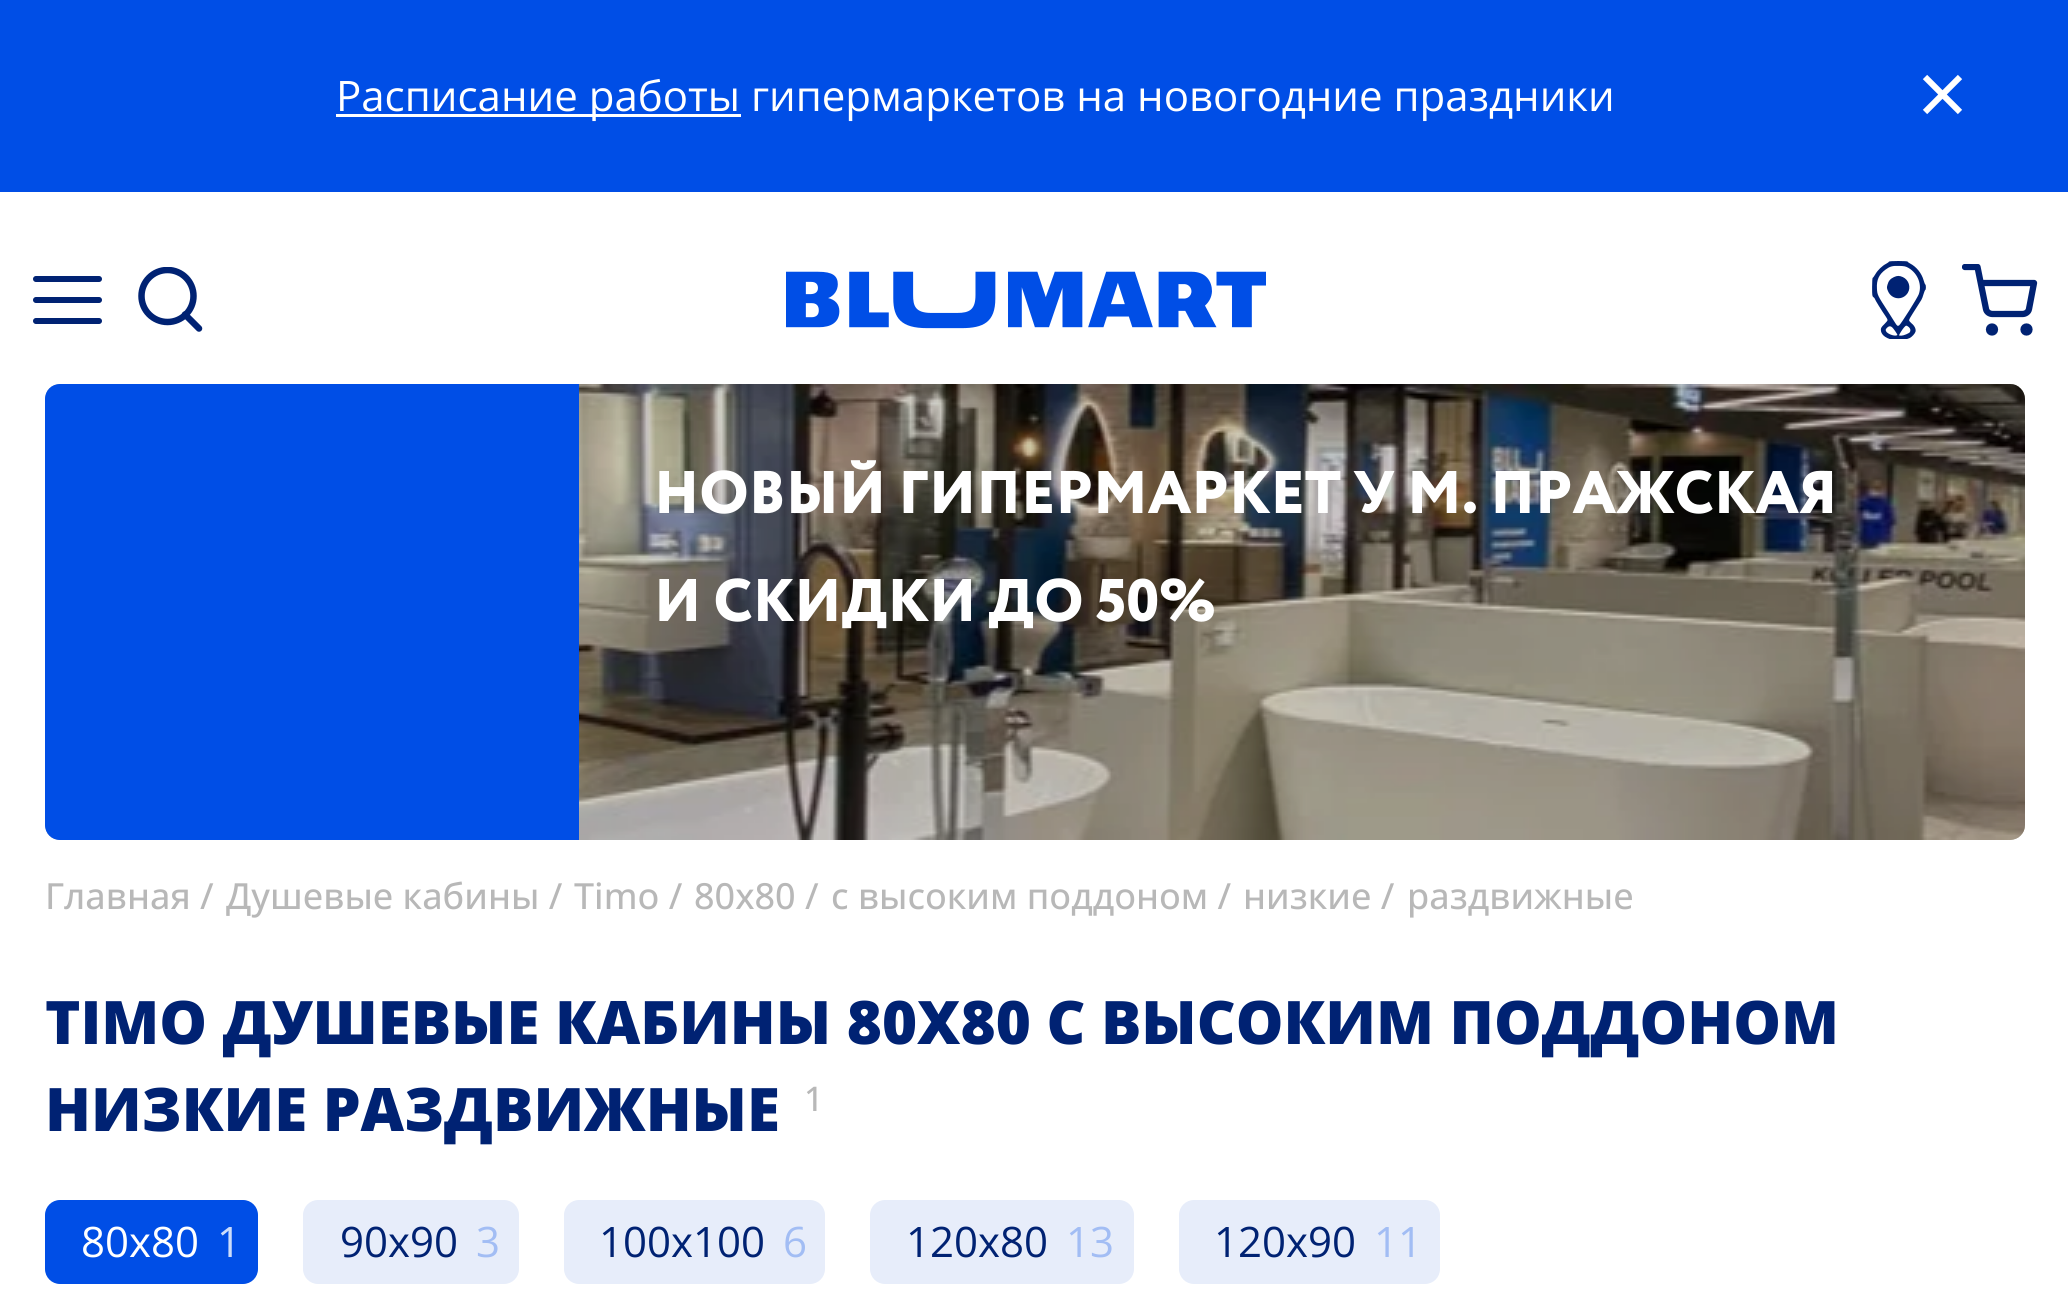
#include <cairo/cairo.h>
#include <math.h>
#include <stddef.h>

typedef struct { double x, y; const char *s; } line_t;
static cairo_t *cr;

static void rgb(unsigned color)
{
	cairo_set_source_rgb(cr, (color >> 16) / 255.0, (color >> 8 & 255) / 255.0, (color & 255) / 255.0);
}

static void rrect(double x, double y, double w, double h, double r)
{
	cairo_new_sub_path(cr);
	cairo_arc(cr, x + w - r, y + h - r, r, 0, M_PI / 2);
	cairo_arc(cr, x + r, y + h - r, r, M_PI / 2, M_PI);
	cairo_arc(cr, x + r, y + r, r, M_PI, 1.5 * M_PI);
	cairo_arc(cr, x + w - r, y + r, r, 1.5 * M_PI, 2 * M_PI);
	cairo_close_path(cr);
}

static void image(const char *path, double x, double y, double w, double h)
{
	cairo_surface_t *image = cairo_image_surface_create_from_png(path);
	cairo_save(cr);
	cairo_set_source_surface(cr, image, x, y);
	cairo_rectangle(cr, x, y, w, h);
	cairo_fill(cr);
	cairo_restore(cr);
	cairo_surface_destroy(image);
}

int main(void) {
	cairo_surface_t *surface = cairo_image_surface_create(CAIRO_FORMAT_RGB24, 2068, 1290);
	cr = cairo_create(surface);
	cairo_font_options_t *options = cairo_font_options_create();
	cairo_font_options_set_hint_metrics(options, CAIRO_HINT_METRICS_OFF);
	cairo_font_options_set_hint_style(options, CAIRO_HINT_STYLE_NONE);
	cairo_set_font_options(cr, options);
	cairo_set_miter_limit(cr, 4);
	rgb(0xffffff);
	cairo_paint(cr);
	rgb(0x004ee6);
	cairo_rectangle(cr, 0, 0, 2068, 192);
	cairo_fill(cr);
	rgb(0xffffff);
	cairo_rectangle(cr, 336, 114, 405, 3);
	cairo_fill(cr);
	cairo_new_path(cr);
	cairo_move_to(cr, 1925, 112);
	cairo_line_to(cr, 1960, 77);
	cairo_move_to(cr, 1925, 77);
	cairo_line_to(cr, 1960, 112);
	cairo_set_line_width(cr, 6.1);
	cairo_stroke(cr);
	cairo_new_path(cr);
	cairo_move_to(cr, 36, 279);
	cairo_line_to(cr, 99, 279);
	rgb(0x002273);
	cairo_set_line_width(cr, 6);
	cairo_set_line_cap(cr, CAIRO_LINE_CAP_ROUND);
	cairo_stroke(cr);
	cairo_new_path(cr);
	cairo_move_to(cr, 36, 300);
	cairo_line_to(cr, 99, 300);
	cairo_stroke(cr);
	cairo_new_path(cr);
	cairo_move_to(cr, 36, 321);
	cairo_line_to(cr, 99, 321);
	cairo_stroke(cr);
	cairo_save(cr);
	cairo_rectangle(cr, 138, 267, 66, 66);
	cairo_clip(cr);
	cairo_arc(cr, 167.5, 296, 26, 0, 2 * M_PI);
	cairo_set_line_width(cr, 6.5);
	cairo_set_line_cap(cr, CAIRO_LINE_CAP_BUTT);
	cairo_stroke(cr);
	cairo_restore(cr);
	cairo_new_path(cr);
	cairo_move_to(cr, 199, 328.5);
	cairo_line_to(cr, 185, 314.5);
	cairo_set_line_width(cr, 6.5);
	cairo_set_line_join(cr, CAIRO_LINE_JOIN_ROUND);
	cairo_stroke(cr);
	image("img/1.png", 786, 271, 480, 58);
	image("img/2.png", 1872, 261, 54, 78);
	cairo_arc(cr, 1992, 329.5, 3, 0, 2 * M_PI);
	cairo_set_line_width(cr, 6.3);
	cairo_set_line_cap(cr, CAIRO_LINE_CAP_BUTT);
	cairo_set_line_join(cr, CAIRO_LINE_JOIN_MITER);
	cairo_stroke(cr);
	cairo_arc(cr, 2026.5, 329.5, 3, 0, 2 * M_PI);
	cairo_stroke(cr);
	cairo_save(cr);
	cairo_rectangle(cr, 1962, 264, 78, 72);
	cairo_clip(cr);
	cairo_new_path(cr);
	cairo_move_to(cr, 1965, 267);
	cairo_line_to(cr, 1977.5, 267);
	cairo_line_to(cr, 1986, 309);
	cairo_curve_to(cr, 1986.5, 312, 1989.5, 314, 1992.5, 314);
	cairo_line_to(cr, 2022.5, 314);
	cairo_curve_to(cr, 2025.5, 314, 2028.5, 312, 2029, 309);
	cairo_line_to(cr, 2034, 283);
	cairo_line_to(cr, 1981, 283);
	cairo_set_line_cap(cr, CAIRO_LINE_CAP_ROUND);
	cairo_set_line_join(cr, CAIRO_LINE_JOIN_ROUND);
	cairo_stroke(cr);
	cairo_restore(cr);
	rgb(0xd7d5c7);
	rrect(45, 384, 1980, 456, 15);
	cairo_fill(cr);
	rgb(0x004ee6);
	cairo_new_path(cr);
	cairo_move_to(cr, 60, 384);
	cairo_line_to(cr, 579, 384);
	cairo_line_to(cr, 579, 840);
	cairo_line_to(cr, 60, 840);
	cairo_curve_to(cr, 51.5, 840, 45, 833.5, 45, 825);
	cairo_line_to(cr, 45, 399);
	cairo_curve_to(cr, 45, 390.5, 51.5, 384, 60, 384);
	cairo_close_path(cr);
	cairo_fill(cr);
	image("img/3.png", 579, 384, 1446, 456);
	cairo_set_source_rgba(cr, 0, 0, 0, 0.2);
	cairo_new_path(cr);
	cairo_move_to(cr, 579, 384);
	cairo_line_to(cr, 2010, 384);
	cairo_curve_to(cr, 2018.5, 384, 2025, 390.5, 2025, 399);
	cairo_line_to(cr, 2025, 825);
	cairo_curve_to(cr, 2025, 833.5, 2018.5, 840, 2010, 840);
	cairo_line_to(cr, 579, 840);
	cairo_close_path(cr);
	cairo_fill(cr);
	image("img/4.png", 659, 460, 1174, 54);
	image("img/5.png", 659, 578, 555, 51);
	rgb(0x004ee6);
	rrect(45, 1200, 213, 84, 15);
	cairo_fill(cr);
	rgb(0xe7edfa);
	rrect(303, 1200, 216, 84, 15);
	cairo_fill(cr);
	rrect(564, 1200, 261, 84, 15);
	cairo_fill(cr);
	rrect(870, 1200, 264, 84, 15);
	cairo_fill(cr);
	rrect(1179, 1200, 261, 84, 15);
	cairo_fill(cr);
	cairo_select_font_face(cr, "Open Sans", CAIRO_FONT_SLANT_NORMAL, CAIRO_FONT_WEIGHT_NORMAL);
	cairo_set_font_size(cr, 42);
	rgb(0xffffff);
	cairo_move_to(cr, 336, 111);
	cairo_show_text(cr, "Расписание работы гипермаркетов на новогодние праздники");
	cairo_select_font_face(cr, "Open Sans Medium", CAIRO_FONT_SLANT_NORMAL, CAIRO_FONT_WEIGHT_NORMAL);
	cairo_set_font_size(cr, 36);
	rgb(0xb8b8b8);
	{
		static const line_t items[] = {
			{45, 909, "Главная /"},
			{226, 909, "Душевые кабины /"},
			{574, 909, "Timo /"},
			{694, 909, "80x80 /"},
			{831, 909, "с высоким поддоном /"},
			{1243, 909, "низкие /"},
			{1407, 909, "раздвижные"},
		};
		for (size_t i = 0; i < sizeof items / sizeof *items; i++) {
			cairo_move_to(cr, items[i].x, items[i].y);
			cairo_show_text(cr, items[i].s);
		}
	}
	cairo_select_font_face(cr, "Open Sans ExtraBold", CAIRO_FONT_SLANT_NORMAL, CAIRO_FONT_WEIGHT_NORMAL);
	cairo_set_font_size(cr, 60);
	rgb(0x002273);
	cairo_move_to(cr, 45, 1044);
	cairo_show_text(cr, "TIMO ДУШЕВЫЕ КАБИНЫ 80X80 С ВЫСОКИМ ПОДДОНОМ");
	cairo_move_to(cr, 45, 1131);
	cairo_show_text(cr, "НИЗКИЕ РАЗДВИЖНЫЕ");
	cairo_select_font_face(cr, "Open Sans Medium", CAIRO_FONT_SLANT_NORMAL, CAIRO_FONT_WEIGHT_NORMAL);
	cairo_set_font_size(cr, 34);
	rgb(0xb8b8b8);
	cairo_move_to(cr, 804, 1111);
	cairo_show_text(cr, "1");
	cairo_select_font_face(cr, "Open Sans", CAIRO_FONT_SLANT_NORMAL, CAIRO_FONT_WEIGHT_NORMAL);
	cairo_set_font_size(cr, 42);
	rgb(0xffffff);
	cairo_move_to(cr, 81, 1257);
	cairo_show_text(cr, "80x80");
	rgb(0xccdcfa);
	cairo_move_to(cr, 217, 1257);
	cairo_show_text(cr, "1");
	rgb(0x002273);
	cairo_move_to(cr, 340, 1257);
	cairo_show_text(cr, "90x90");
	rgb(0xa2bdf4);
	cairo_move_to(cr, 476, 1257);
	cairo_show_text(cr, "3");
	rgb(0x002273);
	cairo_move_to(cr, 599, 1257);
	cairo_show_text(cr, "100x100");
	rgb(0xa2bdf4);
	cairo_move_to(cr, 783, 1257);
	cairo_show_text(cr, "6");
	rgb(0x002273);
	cairo_move_to(cr, 906, 1257);
	cairo_show_text(cr, "120x80");
	rgb(0xa2bdf4);
	cairo_move_to(cr, 1066, 1257);
	cairo_show_text(cr, "13");
	rgb(0x002273);
	cairo_move_to(cr, 1214, 1257);
	cairo_show_text(cr, "120x90");
	rgb(0xa2bdf4);
	cairo_move_to(cr, 1374, 1257);
	cairo_show_text(cr, "11");
	cairo_surface_write_to_png(surface, "page.png");
	cairo_font_options_destroy(options);
	cairo_destroy(cr);
	cairo_surface_destroy(surface);
	return 0;
}
